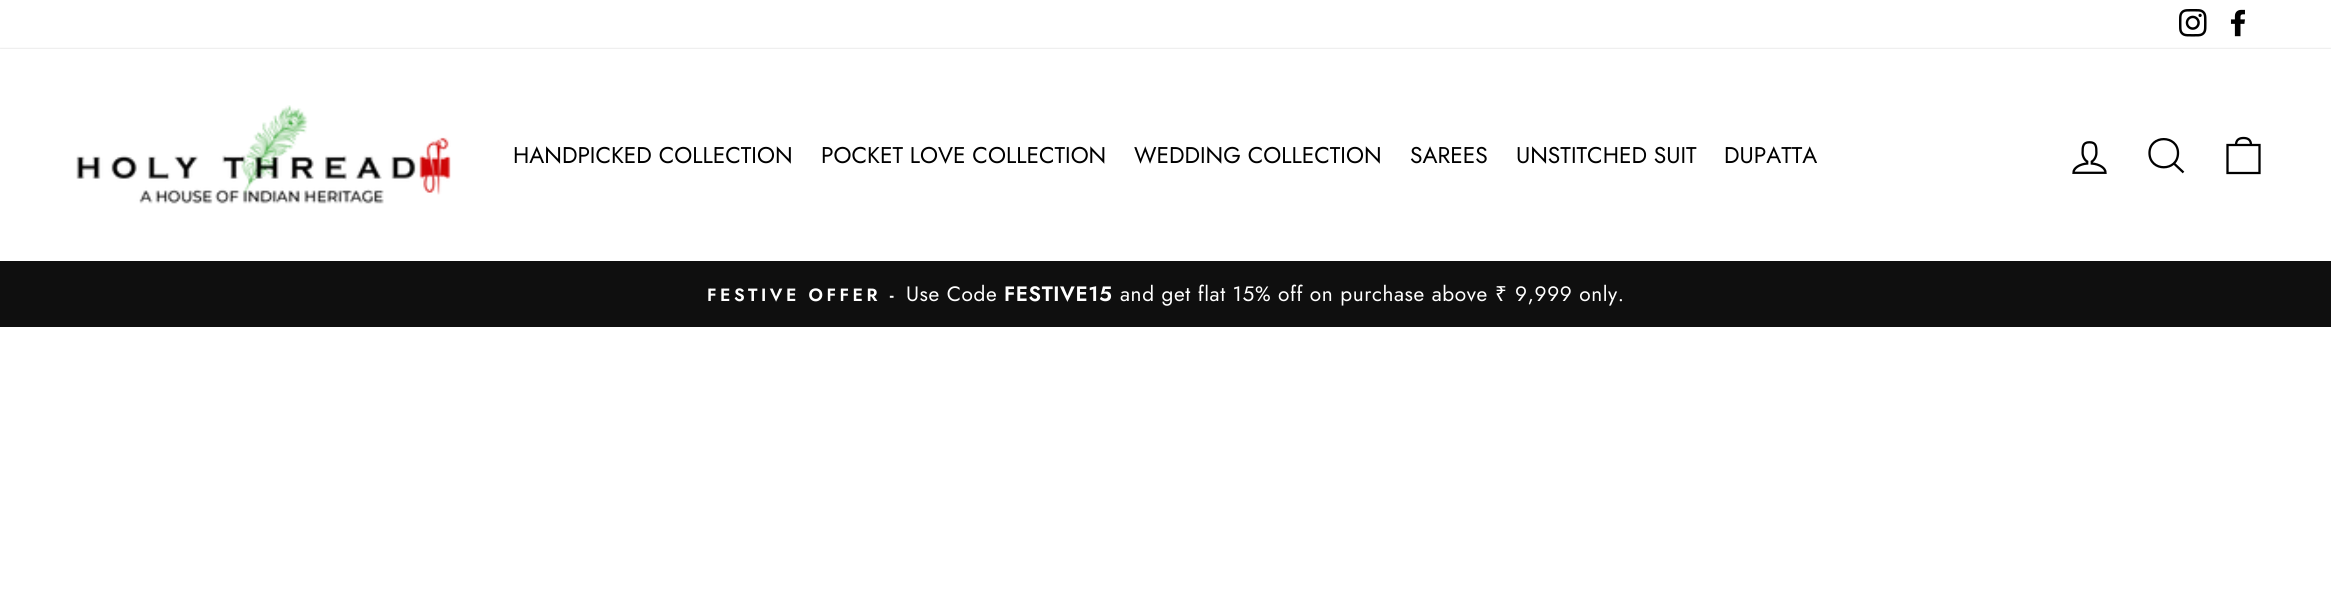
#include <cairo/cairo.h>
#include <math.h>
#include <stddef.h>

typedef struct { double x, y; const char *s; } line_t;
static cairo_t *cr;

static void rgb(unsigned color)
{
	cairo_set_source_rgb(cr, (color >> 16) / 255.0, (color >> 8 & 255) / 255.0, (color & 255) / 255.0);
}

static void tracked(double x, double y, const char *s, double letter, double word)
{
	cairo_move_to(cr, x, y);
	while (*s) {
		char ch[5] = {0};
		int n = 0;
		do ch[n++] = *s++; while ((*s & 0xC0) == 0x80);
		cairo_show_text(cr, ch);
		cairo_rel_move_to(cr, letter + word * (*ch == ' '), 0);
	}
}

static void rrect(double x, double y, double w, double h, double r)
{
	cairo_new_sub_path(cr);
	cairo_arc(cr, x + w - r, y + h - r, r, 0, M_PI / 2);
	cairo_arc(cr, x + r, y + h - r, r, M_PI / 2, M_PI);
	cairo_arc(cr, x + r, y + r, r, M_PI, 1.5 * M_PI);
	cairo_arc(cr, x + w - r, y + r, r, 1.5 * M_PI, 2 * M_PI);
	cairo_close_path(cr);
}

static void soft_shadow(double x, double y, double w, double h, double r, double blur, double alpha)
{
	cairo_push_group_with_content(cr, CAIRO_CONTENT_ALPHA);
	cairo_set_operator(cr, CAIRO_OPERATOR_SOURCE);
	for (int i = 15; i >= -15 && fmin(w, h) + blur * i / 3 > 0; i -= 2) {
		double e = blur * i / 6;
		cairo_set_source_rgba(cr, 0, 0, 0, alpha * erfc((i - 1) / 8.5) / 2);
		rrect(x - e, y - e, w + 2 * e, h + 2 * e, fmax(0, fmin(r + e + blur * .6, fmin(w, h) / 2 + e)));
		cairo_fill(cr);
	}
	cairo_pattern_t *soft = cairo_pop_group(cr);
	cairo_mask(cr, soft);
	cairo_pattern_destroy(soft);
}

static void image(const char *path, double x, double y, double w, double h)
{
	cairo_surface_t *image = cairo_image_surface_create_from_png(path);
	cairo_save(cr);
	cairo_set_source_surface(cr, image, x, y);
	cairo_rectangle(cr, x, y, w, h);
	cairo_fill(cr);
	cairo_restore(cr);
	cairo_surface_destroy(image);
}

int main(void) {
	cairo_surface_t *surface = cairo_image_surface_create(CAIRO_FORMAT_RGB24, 2331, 592);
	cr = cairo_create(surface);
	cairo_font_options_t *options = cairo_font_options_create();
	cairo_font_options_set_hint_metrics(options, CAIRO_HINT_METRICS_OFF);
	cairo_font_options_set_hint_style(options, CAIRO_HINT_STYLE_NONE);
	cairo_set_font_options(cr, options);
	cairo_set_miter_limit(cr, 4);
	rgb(0xffffff);
	cairo_paint(cr);
	image("img/1.png", 2179, 9, 28, 28);
	image("img/2.png", 2230, 9, 15, 28);
	rgb(0x0f0f0f);
	cairo_rectangle(cr, 0, 261, 2331, 66);
	cairo_fill(cr);
	rgb(0x000000);
	soft_shadow(0, 49, 2331, 212, 0, 1, 0.2);
	rgb(0xffffff);
	cairo_rectangle(cr, 0, 49, 2331, 212);
	cairo_fill(cr);
	image("img/3.png", 76, 105, 375, 99);
	image("img/4.png", 2072, 141, 35, 33);
	cairo_new_path(cr);
	cairo_move_to(cr, 2178, 153);
	cairo_curve_to(cr, 2178, 172, 2149.5, 172, 2149.5, 153);
	cairo_curve_to(cr, 2149.5, 134.5, 2178, 134.5, 2178, 153);
	cairo_close_path(cr);
	cairo_move_to(cr, 2183.5, 172.5);
	cairo_line_to(cr, 2174, 163.5);
	rgb(0x000000);
	cairo_set_line_width(cr, 2.3);
	cairo_stroke(cr);
	cairo_new_path(cr);
	cairo_move_to(cr, 2227.5, 145);
	cairo_line_to(cr, 2259.5, 145);
	cairo_line_to(cr, 2259.5, 173);
	cairo_line_to(cr, 2227.5, 173);
	cairo_close_path(cr);
	cairo_move_to(cr, 2236, 145);
	cairo_curve_to(cr, 2236, 139.5, 2239.5, 138, 2243.5, 138);
	cairo_curve_to(cr, 2247.5, 138, 2251, 139.5, 2251, 145);
	cairo_stroke(cr);
	cairo_select_font_face(cr, "Jost", CAIRO_FONT_SLANT_NORMAL, CAIRO_FONT_WEIGHT_NORMAL);
	cairo_set_font_size(cr, 22.75);
	{
		static const line_t items[] = {
			{513, 163, "HANDPICKED COLLECTION"},
			{821, 163, "POCKET LOVE COLLECTION"},
			{1134, 163, "WEDDING COLLECTION"},
			{1410, 163, "SAREES"},
			{1516, 163, "UNSTITCHED SUIT"},
			{1724, 163, "DUPATTA"},
		};
		for (size_t i = 0; i < sizeof items / sizeof *items; i++) {
			cairo_move_to(cr, items[i].x, items[i].y);
			cairo_show_text(cr, items[i].s);
		}
	}
	cairo_select_font_face(cr, "Jost SemiBold", CAIRO_FONT_SLANT_NORMAL, CAIRO_FONT_WEIGHT_NORMAL);
	cairo_set_font_size(cr, 17.75);
	rgb(0xffffff);
	tracked(707, 301, "FESTIVE OFFER -", 3.5, 0);
	cairo_select_font_face(cr, "Jost", CAIRO_FONT_SLANT_NORMAL, CAIRO_FONT_WEIGHT_NORMAL);
	cairo_set_font_size(cr, 20.8);
	tracked(906, 301, "Use Code", 0.6, 0);
	cairo_select_font_face(cr, "Jost SemiBold", CAIRO_FONT_SLANT_NORMAL, CAIRO_FONT_WEIGHT_NORMAL);
	tracked(1004, 301, "FESTIVE15", 0.6, 0);
	cairo_select_font_face(cr, "Jost", CAIRO_FONT_SLANT_NORMAL, CAIRO_FONT_WEIGHT_NORMAL);
	tracked(1120, 301, "and get flat 15% off on purchase above", 0.6, 0);
	cairo_select_font_face(cr, "Noto Sans", CAIRO_FONT_SLANT_NORMAL, CAIRO_FONT_WEIGHT_NORMAL);
	tracked(1495, 301, "₹", 0.6, 0);
	cairo_select_font_face(cr, "Jost", CAIRO_FONT_SLANT_NORMAL, CAIRO_FONT_WEIGHT_NORMAL);
	tracked(1515, 301, "9,999 only.", 0.6, 0);
	cairo_surface_write_to_png(surface, "page.png");
	cairo_font_options_destroy(options);
	cairo_destroy(cr);
	cairo_surface_destroy(surface);
	return 0;
}
